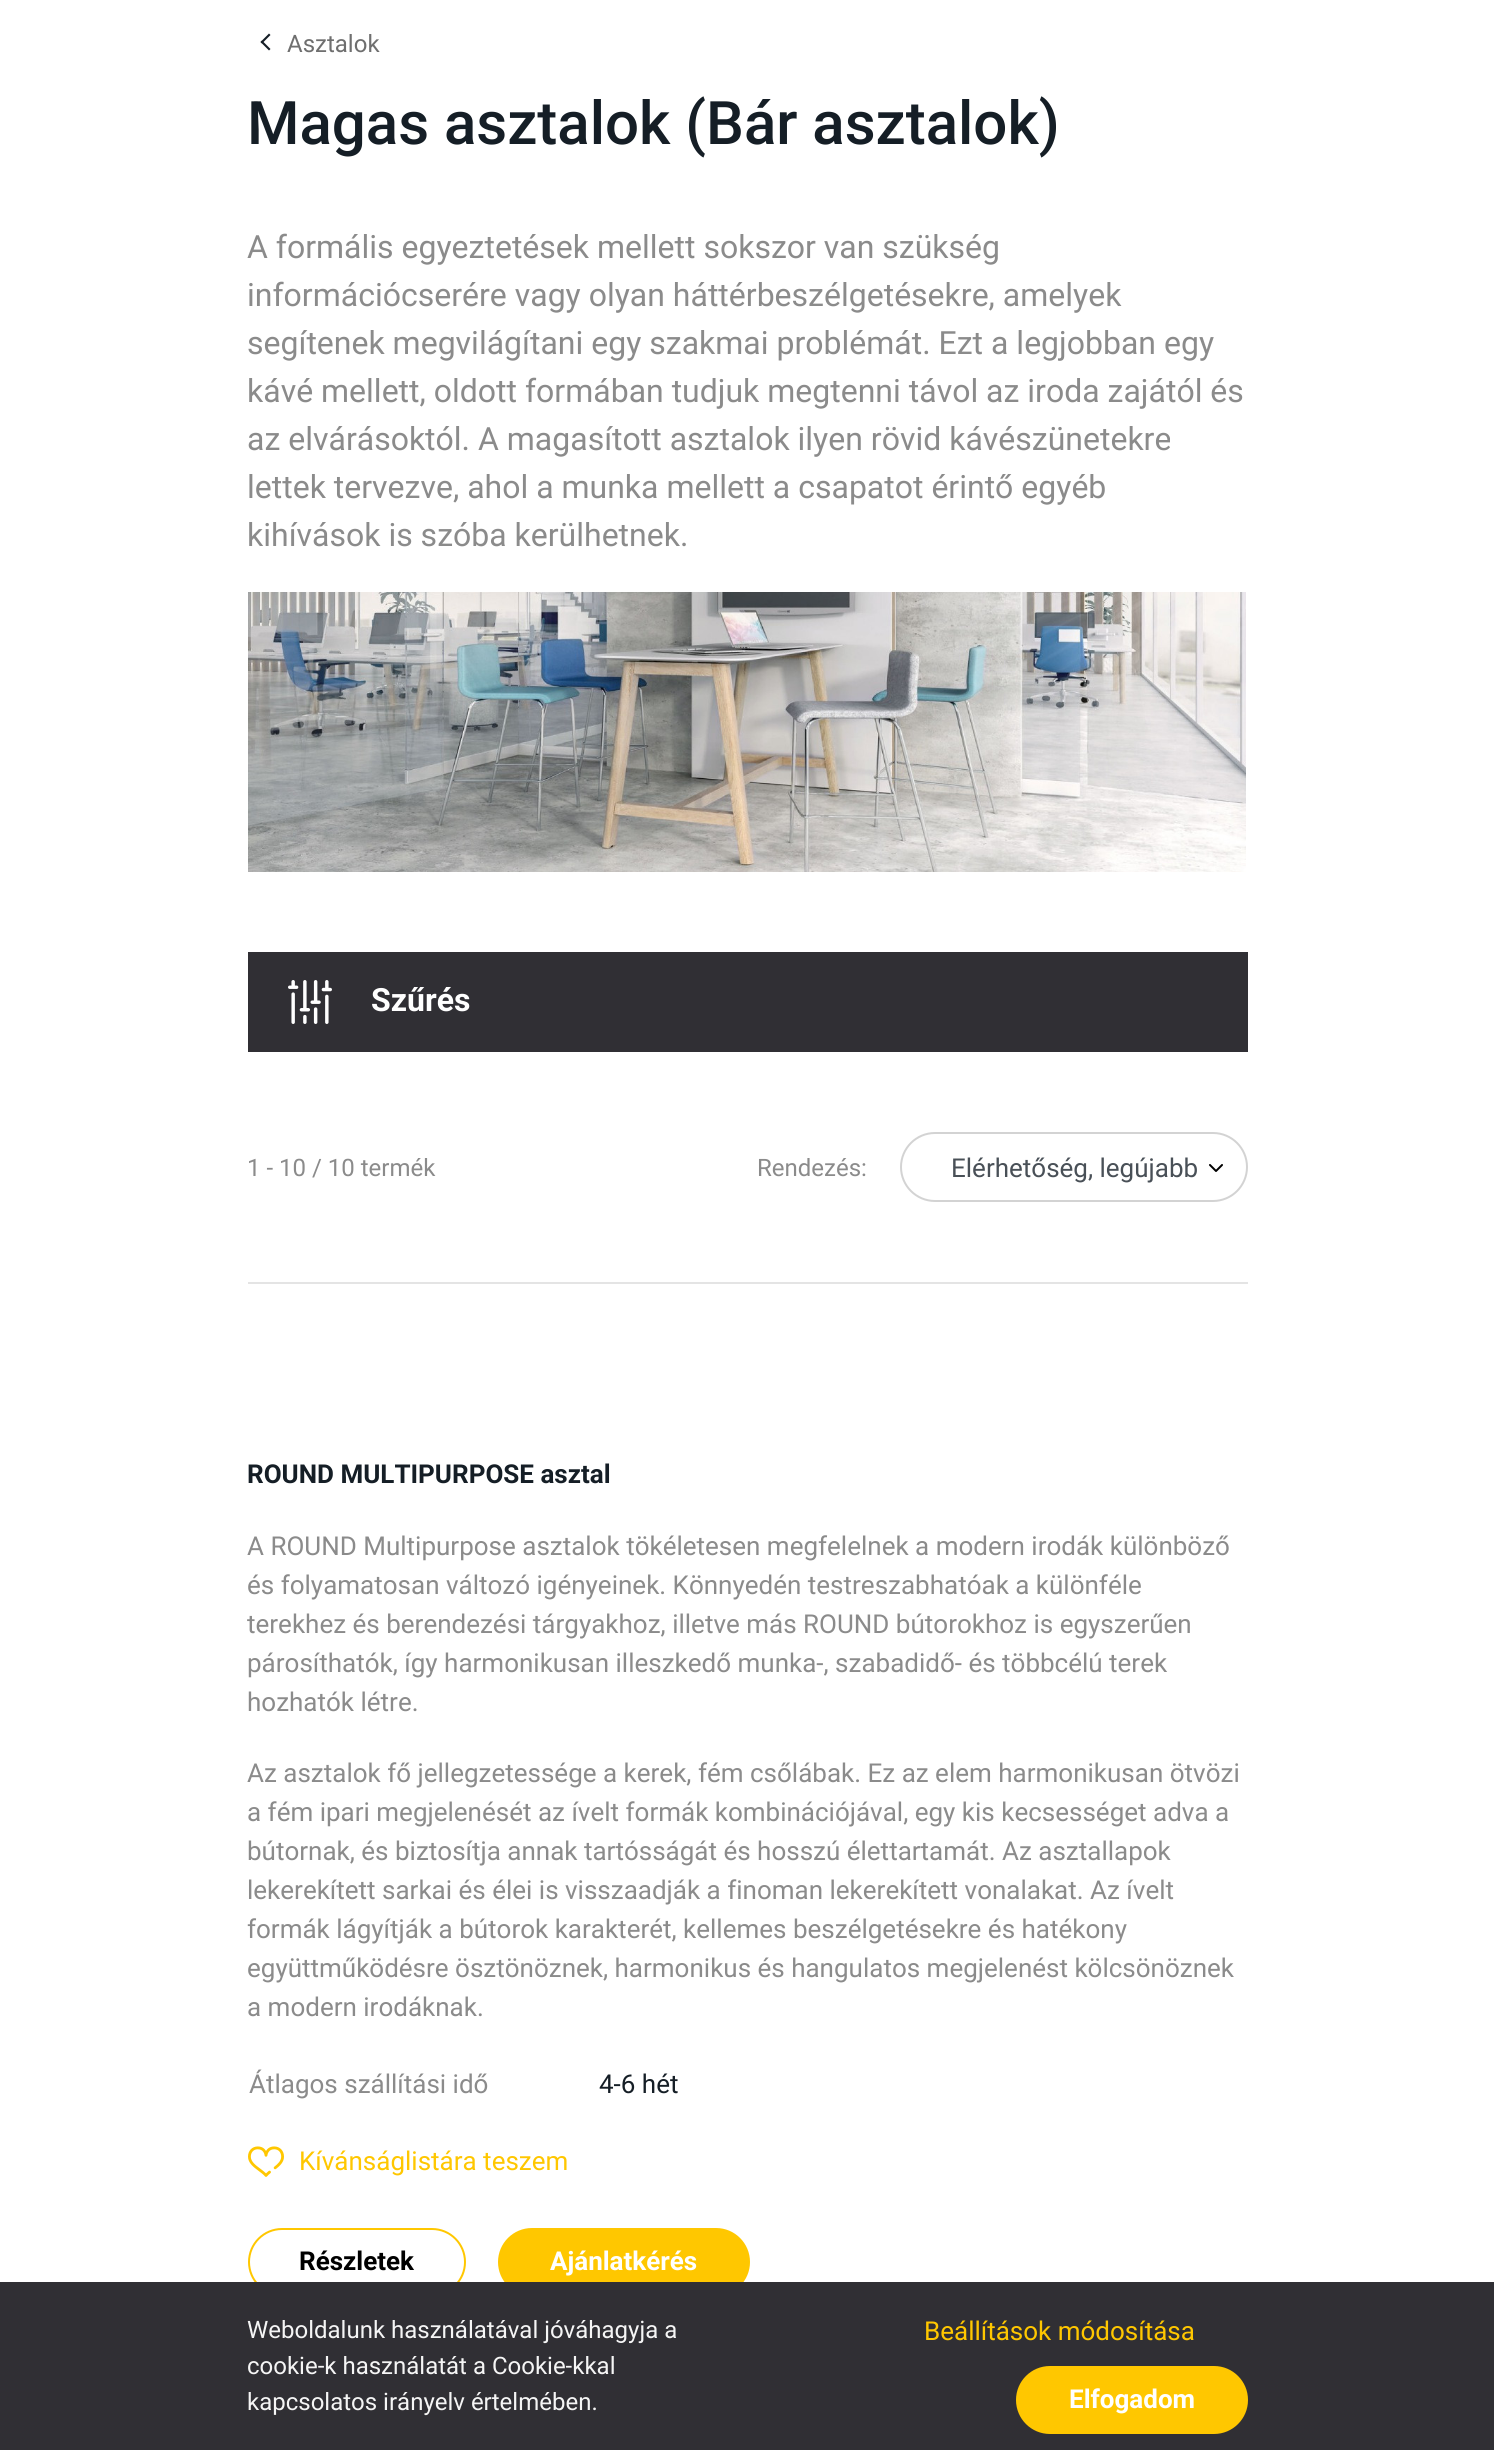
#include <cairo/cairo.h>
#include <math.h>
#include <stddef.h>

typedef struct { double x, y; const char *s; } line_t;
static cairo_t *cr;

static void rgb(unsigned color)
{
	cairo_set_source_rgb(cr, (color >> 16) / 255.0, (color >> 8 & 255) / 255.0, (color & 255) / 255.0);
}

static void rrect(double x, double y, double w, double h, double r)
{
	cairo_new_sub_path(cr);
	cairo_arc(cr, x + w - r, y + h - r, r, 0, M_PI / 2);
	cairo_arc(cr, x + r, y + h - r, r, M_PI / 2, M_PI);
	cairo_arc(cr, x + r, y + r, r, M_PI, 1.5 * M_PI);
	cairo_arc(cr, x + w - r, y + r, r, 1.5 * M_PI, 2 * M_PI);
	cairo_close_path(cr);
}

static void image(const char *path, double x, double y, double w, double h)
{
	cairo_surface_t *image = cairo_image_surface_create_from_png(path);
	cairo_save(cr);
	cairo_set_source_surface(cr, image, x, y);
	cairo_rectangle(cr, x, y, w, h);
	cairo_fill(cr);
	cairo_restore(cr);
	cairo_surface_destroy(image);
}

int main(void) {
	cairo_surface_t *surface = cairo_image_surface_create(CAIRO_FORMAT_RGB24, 1494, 2450);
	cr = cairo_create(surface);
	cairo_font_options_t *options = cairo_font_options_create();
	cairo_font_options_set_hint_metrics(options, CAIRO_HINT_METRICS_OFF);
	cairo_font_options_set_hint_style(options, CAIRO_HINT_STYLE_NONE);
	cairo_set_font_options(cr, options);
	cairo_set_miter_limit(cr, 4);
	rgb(0xffffff);
	cairo_paint(cr);
	rgb(0x151e26);
	cairo_new_path(cr);
	cairo_move_to(cr, 270.5, 49);
	cairo_line_to(cr, 269, 50.5);
	cairo_line_to(cr, 260.5, 42);
	cairo_line_to(cr, 262, 40.5);
	cairo_close_path(cr);
	cairo_fill(cr);
	cairo_new_path(cr);
	cairo_move_to(cr, 270.5, 35);
	cairo_line_to(cr, 262, 43.5);
	cairo_line_to(cr, 260.5, 42);
	cairo_line_to(cr, 269, 33.5);
	cairo_close_path(cr);
	cairo_fill(cr);
	image("img/1.png", 248, 592, 998, 280);
	rgb(0x302f34);
	cairo_rectangle(cr, 248, 952, 1000, 100);
	cairo_fill(cr);
	image("img/2.png", 288, 980, 44, 44);
	rgb(0xe4e4e4);
	cairo_rectangle(cr, 248, 1282, 1000, 2);
	cairo_fill(cr);
	image("img/3.png", 1209, 1164, 14, 8);
	rrect(901, 1133, 346, 68, 34);
	rgb(0xd3d3d3);
	cairo_stroke(cr);
	image("img/4.png", 248, 2146, 36, 31);
	rrect(249, 2229, 216, 66, 33);
	rgb(0xffc700);
	cairo_stroke(cr);
	rrect(499, 2229, 250, 66, 33);
	cairo_fill_preserve(cr);
	cairo_stroke(cr);
	rgb(0x302f34);
	cairo_rectangle(cr, 0, 2282, 1494, 168);
	cairo_fill(cr);
	rgb(0xffc700);
	rrect(1017, 2367, 230, 66, 33);
	cairo_fill_preserve(cr);
	cairo_stroke(cr);
	cairo_select_font_face(cr, "Roboto", CAIRO_FONT_SLANT_NORMAL, CAIRO_FONT_WEIGHT_NORMAL);
	cairo_set_font_size(cr, 24);
	rgb(0x6f6f6f);
	cairo_move_to(cr, 287, 52);
	cairo_show_text(cr, "Asztalok");
	cairo_select_font_face(cr, "Roboto Medium", CAIRO_FONT_SLANT_NORMAL, CAIRO_FONT_WEIGHT_NORMAL);
	cairo_set_font_size(cr, 60);
	rgb(0x151e26);
	cairo_move_to(cr, 247, 144);
	cairo_show_text(cr, "Magas asztalok (Bár asztalok)");
	cairo_select_font_face(cr, "Roboto", CAIRO_FONT_SLANT_NORMAL, CAIRO_FONT_WEIGHT_NORMAL);
	cairo_set_font_size(cr, 32);
	rgb(0x8b8b8b);
	{
		static const line_t items[] = {
			{247, 258, "A formális egyeztetések mellett sokszor van szükség"},
			{247, 306, "információcserére vagy olyan háttérbeszélgetésekre, amelyek"},
			{247, 354, "segítenek megvilágítani egy szakmai problémát. Ezt a legjobban egy"},
			{247, 402, "kávé mellett, oldott formában tudjuk megtenni távol az iroda zajától és"},
			{247, 450, "az elvárásoktól. A magasított asztalok ilyen rövid kávészünetekre"},
			{247, 498, "lettek tervezve, ahol a munka mellett a csapatot érintő egyéb"},
			{247, 546, "kihívások is szóba kerülhetnek."},
		};
		for (size_t i = 0; i < sizeof items / sizeof *items; i++) {
			cairo_move_to(cr, items[i].x, items[i].y);
			cairo_show_text(cr, items[i].s);
		}
	}
	cairo_select_font_face(cr, "Roboto", CAIRO_FONT_SLANT_NORMAL, CAIRO_FONT_WEIGHT_BOLD);
	rgb(0xffffff);
	cairo_move_to(cr, 371, 1011);
	cairo_show_text(cr, "Szűrés");
	cairo_select_font_face(cr, "Roboto", CAIRO_FONT_SLANT_NORMAL, CAIRO_FONT_WEIGHT_NORMAL);
	cairo_set_font_size(cr, 24);
	rgb(0x8b8b8b);
	cairo_move_to(cr, 247, 1176);
	cairo_show_text(cr, "1 - 10 / 10 termék");
	cairo_move_to(cr, 757, 1176);
	cairo_show_text(cr, "Rendezés:");
	cairo_set_font_size(cr, 26);
	rgb(0x495057);
	cairo_move_to(cr, 951, 1177);
	cairo_show_text(cr, "Elérhetőség, legújabb");
	cairo_select_font_face(cr, "Roboto", CAIRO_FONT_SLANT_NORMAL, CAIRO_FONT_WEIGHT_BOLD);
	rgb(0x151e26);
	cairo_move_to(cr, 247, 1483);
	cairo_show_text(cr, "ROUND MULTIPURPOSE asztal");
	cairo_select_font_face(cr, "Roboto", CAIRO_FONT_SLANT_NORMAL, CAIRO_FONT_WEIGHT_NORMAL);
	rgb(0x8b8b8b);
	{
		static const line_t items[] = {
			{247, 1555, "A ROUND Multipurpose asztalok tökéletesen megfelelnek a modern irodák különböző"},
			{247, 1594, "és folyamatosan változó igényeinek. Könnyedén testreszabhatóak a különféle"},
			{247, 1633, "terekhez és berendezési tárgyakhoz, illetve más ROUND bútorokhoz is egyszerűen"},
			{247, 1672, "párosíthatók, így harmonikusan illeszkedő munka-, szabadidő- és többcélú terek"},
			{247, 1711, "hozhatók létre."},
			{247, 1782, "Az asztalok fő jellegzetessége a kerek, fém csőlábak. Ez az elem harmonikusan ötvözi"},
			{247, 1821, "a fém ipari megjelenését az ívelt formák kombinációjával, egy kis kecsességet adva a"},
			{247, 1860, "bútornak, és biztosítja annak tartósságát és hosszú élettartamát. Az asztallapok"},
			{247, 1899, "lekerekített sarkai és élei is visszaadják a finoman lekerekített vonalakat. Az ívelt"},
			{247, 1938, "formák lágyítják a bútorok karakterét, kellemes beszélgetésekre és hatékony"},
			{247, 1977, "együttműködésre ösztönöznek, harmonikus és hangulatos megjelenést kölcsönöznek"},
			{247, 2016, "a modern irodáknak."},
			{249, 2093, "Átlagos szállítási idő"},
		};
		for (size_t i = 0; i < sizeof items / sizeof *items; i++) {
			cairo_move_to(cr, items[i].x, items[i].y);
			cairo_show_text(cr, items[i].s);
		}
	}
	rgb(0x151e26);
	cairo_move_to(cr, 599, 2093);
	cairo_show_text(cr, "4-6 hét");
	rgb(0xffc700);
	cairo_move_to(cr, 299, 2170);
	cairo_show_text(cr, "Kívánságlistára teszem");
	cairo_select_font_face(cr, "Roboto", CAIRO_FONT_SLANT_NORMAL, CAIRO_FONT_WEIGHT_BOLD);
	rgb(0x000000);
	cairo_move_to(cr, 299, 2270);
	cairo_show_text(cr, "Részletek");
	rgb(0xffffff);
	cairo_move_to(cr, 550, 2270);
	cairo_show_text(cr, "Ajánlatkérés");
	cairo_select_font_face(cr, "Roboto", CAIRO_FONT_SLANT_NORMAL, CAIRO_FONT_WEIGHT_NORMAL);
	cairo_set_font_size(cr, 24);
	rgb(0xf5f5f5);
	{
		static const line_t items[] = {
			{247, 2338, "Weboldalunk használatával jóváhagyja a"},
			{247, 2374, "cookie-k használatát a Cookie-kkal"},
			{247, 2410, "kapcsolatos irányelv értelmében."},
		};
		for (size_t i = 0; i < sizeof items / sizeof *items; i++) {
			cairo_move_to(cr, items[i].x, items[i].y);
			cairo_show_text(cr, items[i].s);
		}
	}
	cairo_set_font_size(cr, 26);
	rgb(0xffc700);
	cairo_move_to(cr, 924, 2340);
	cairo_show_text(cr, "Beállítások módosítása");
	cairo_select_font_face(cr, "Roboto", CAIRO_FONT_SLANT_NORMAL, CAIRO_FONT_WEIGHT_BOLD);
	rgb(0xffffff);
	cairo_move_to(cr, 1069, 2408);
	cairo_show_text(cr, "Elfogadom");
	cairo_surface_write_to_png(surface, "page.png");
	cairo_font_options_destroy(options);
	cairo_destroy(cr);
	cairo_surface_destroy(surface);
	return 0;
}
